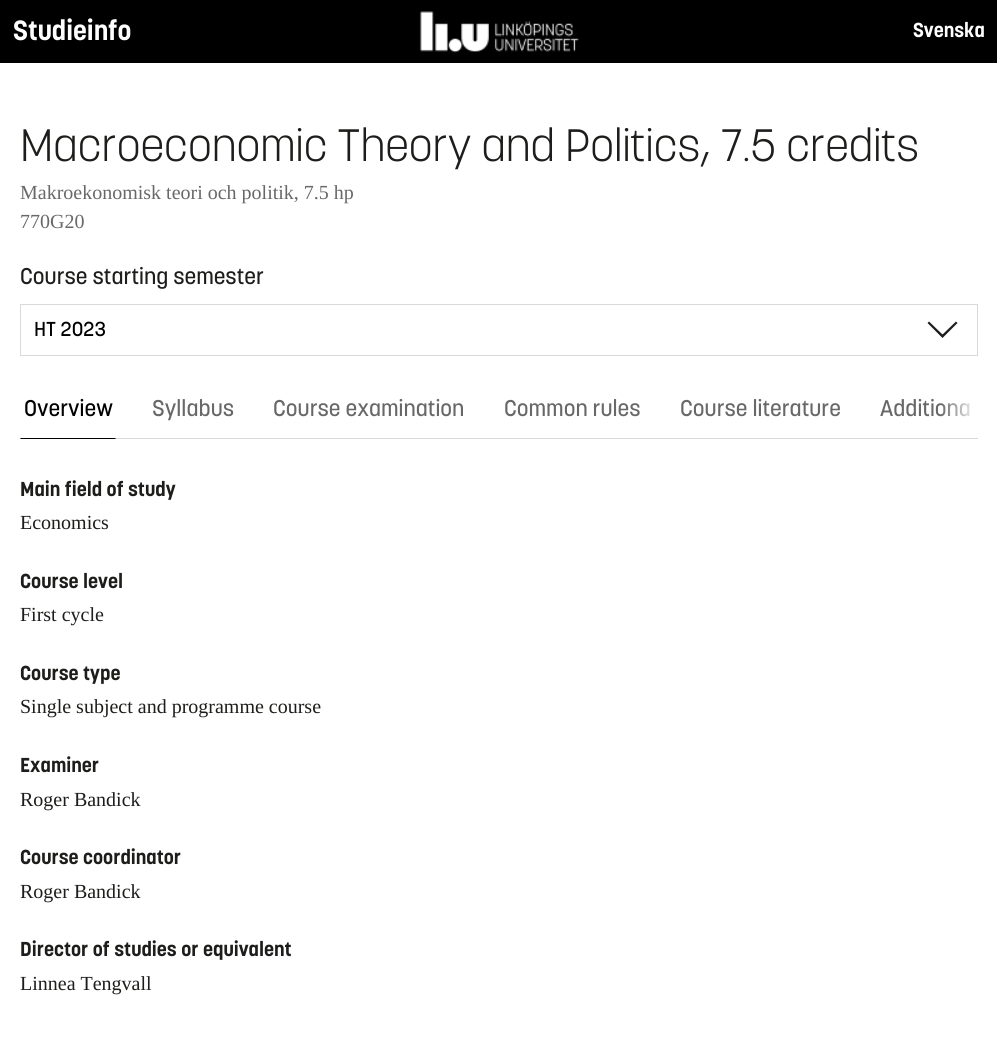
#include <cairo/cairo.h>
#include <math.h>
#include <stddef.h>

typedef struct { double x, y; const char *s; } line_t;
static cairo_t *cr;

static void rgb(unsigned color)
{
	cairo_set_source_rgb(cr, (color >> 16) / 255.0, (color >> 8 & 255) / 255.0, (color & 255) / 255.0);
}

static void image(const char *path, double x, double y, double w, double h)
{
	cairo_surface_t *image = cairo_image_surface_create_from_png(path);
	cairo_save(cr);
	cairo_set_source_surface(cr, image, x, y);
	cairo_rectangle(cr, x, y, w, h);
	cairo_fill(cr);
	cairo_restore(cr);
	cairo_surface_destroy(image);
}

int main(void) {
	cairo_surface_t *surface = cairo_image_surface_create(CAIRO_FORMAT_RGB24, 997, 1053);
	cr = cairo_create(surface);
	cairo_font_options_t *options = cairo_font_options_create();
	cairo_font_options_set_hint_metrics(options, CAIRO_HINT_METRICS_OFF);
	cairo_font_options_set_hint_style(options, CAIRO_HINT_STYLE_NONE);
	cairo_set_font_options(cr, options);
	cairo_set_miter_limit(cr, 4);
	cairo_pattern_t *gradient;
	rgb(0xffffff);
	cairo_paint(cr);
	rgb(0x000000);
	cairo_rectangle(cr, 0, 0, 997, 63);
	cairo_fill(cr);
	image("img/1.png", 419, 11, 160, 42);
	cairo_rectangle(cr, 20.5, 304.5, 957, 51);
	rgb(0xd9d9d9);
	cairo_set_line_width(cr, 1);
	cairo_stroke(cr);
	rgb(0x1d1d1b);
	cairo_new_path(cr);
	cairo_move_to(cr, 942.5, 338);
	cairo_line_to(cr, 927.5, 323);
	cairo_line_to(cr, 929, 321.5);
	cairo_line_to(cr, 942.5, 334.5);
	cairo_line_to(cr, 956, 321.5);
	cairo_line_to(cr, 957.5, 323);
	cairo_close_path(cr);
	cairo_fill(cr);
	rgb(0xd9d9d9);
	cairo_rectangle(cr, 20, 438, 958, 1);
	cairo_fill(cr);
	rgb(0x000000);
	cairo_new_path(cr);
	cairo_move_to(cr, 116, 439);
	cairo_line_to(cr, 20, 439);
	cairo_line_to(cr, 21, 438);
	cairo_line_to(cr, 115, 438);
	cairo_close_path(cr);
	cairo_fill(cr);
	cairo_select_font_face(cr, "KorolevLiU", CAIRO_FONT_SLANT_NORMAL, CAIRO_FONT_WEIGHT_BOLD);
	cairo_set_font_size(cr, 27.5);
	rgb(0xffffff);
	cairo_move_to(cr, 13, 40);
	cairo_show_text(cr, "Studieinfo");
	cairo_set_font_size(cr, 20);
	cairo_move_to(cr, 913, 37);
	cairo_show_text(cr, "Svenska");
	cairo_select_font_face(cr, "KorolevLiU Light", CAIRO_FONT_SLANT_NORMAL, CAIRO_FONT_WEIGHT_NORMAL);
	cairo_set_font_size(cr, 45);
	rgb(0x1d1d1b);
	cairo_move_to(cr, 20, 161);
	cairo_show_text(cr, "Macroeconomic Theory and Politics, 7.5 credits");
	cairo_select_font_face(cr, "Liberation Serif", CAIRO_FONT_SLANT_NORMAL, CAIRO_FONT_WEIGHT_NORMAL);
	cairo_set_font_size(cr, 20);
	rgb(0x686868);
	cairo_move_to(cr, 20, 199);
	cairo_show_text(cr, "Makroekonomisk teori och politik, 7.5 hp");
	cairo_move_to(cr, 20, 228);
	cairo_show_text(cr, "770G20");
	cairo_select_font_face(cr, "KorolevLiU Medium", CAIRO_FONT_SLANT_NORMAL, CAIRO_FONT_WEIGHT_NORMAL);
	cairo_set_font_size(cr, 22.5);
	rgb(0x1d1d1b);
	cairo_move_to(cr, 20, 284);
	cairo_show_text(cr, "Course starting semester");
	cairo_set_font_size(cr, 20);
	rgb(0x000000);
	cairo_move_to(cr, 34, 336);
	cairo_show_text(cr, "HT 2023");
	cairo_set_font_size(cr, 22.5);
	cairo_move_to(cr, 24, 416);
	cairo_show_text(cr, "Overview");
	rgb(0x686868);
	{
		static const line_t items[] = {
			{152, 416, "Syllabus"},
			{273, 416, "Course examination"},
			{504, 416, "Common rules"},
			{680, 416, "Course literature"},
			{880, 416, "Additiona"},
		};
		for (size_t i = 0; i < sizeof items / sizeof *items; i++) {
			cairo_move_to(cr, items[i].x, items[i].y);
			cairo_show_text(cr, items[i].s);
		}
	}
	gradient = cairo_pattern_create_linear(940, 409, 978, 409);
	cairo_pattern_add_color_stop_rgba(gradient, 0, 1, 1, 1, 0);
	cairo_pattern_add_color_stop_rgba(gradient, 1, 1, 1, 1, 1);
	cairo_set_source(cr, gradient);
	cairo_pattern_destroy(gradient);
	cairo_rectangle(cr, 941, 403, 29, 14);
	cairo_fill(cr);
	cairo_select_font_face(cr, "KorolevLiU", CAIRO_FONT_SLANT_NORMAL, CAIRO_FONT_WEIGHT_BOLD);
	cairo_set_font_size(cr, 20);
	rgb(0x1d1d1b);
	cairo_move_to(cr, 20, 496);
	cairo_show_text(cr, "Main field of study");
	cairo_select_font_face(cr, "Liberation Serif", CAIRO_FONT_SLANT_NORMAL, CAIRO_FONT_WEIGHT_NORMAL);
	cairo_move_to(cr, 20, 529);
	cairo_show_text(cr, "Economics");
	cairo_select_font_face(cr, "KorolevLiU", CAIRO_FONT_SLANT_NORMAL, CAIRO_FONT_WEIGHT_BOLD);
	cairo_move_to(cr, 20, 588);
	cairo_show_text(cr, "Course level");
	cairo_select_font_face(cr, "Liberation Serif", CAIRO_FONT_SLANT_NORMAL, CAIRO_FONT_WEIGHT_NORMAL);
	cairo_move_to(cr, 20, 621);
	cairo_show_text(cr, "First cycle");
	cairo_select_font_face(cr, "KorolevLiU", CAIRO_FONT_SLANT_NORMAL, CAIRO_FONT_WEIGHT_BOLD);
	cairo_move_to(cr, 20, 680);
	cairo_show_text(cr, "Course type");
	cairo_select_font_face(cr, "Liberation Serif", CAIRO_FONT_SLANT_NORMAL, CAIRO_FONT_WEIGHT_NORMAL);
	cairo_move_to(cr, 20, 713);
	cairo_show_text(cr, "Single subject and programme course");
	cairo_select_font_face(cr, "KorolevLiU", CAIRO_FONT_SLANT_NORMAL, CAIRO_FONT_WEIGHT_BOLD);
	cairo_move_to(cr, 20, 772);
	cairo_show_text(cr, "Examiner");
	cairo_select_font_face(cr, "Liberation Serif", CAIRO_FONT_SLANT_NORMAL, CAIRO_FONT_WEIGHT_NORMAL);
	cairo_move_to(cr, 20, 806);
	cairo_show_text(cr, "Roger Bandick");
	cairo_select_font_face(cr, "KorolevLiU", CAIRO_FONT_SLANT_NORMAL, CAIRO_FONT_WEIGHT_BOLD);
	cairo_move_to(cr, 20, 864);
	cairo_show_text(cr, "Course coordinator");
	cairo_select_font_face(cr, "Liberation Serif", CAIRO_FONT_SLANT_NORMAL, CAIRO_FONT_WEIGHT_NORMAL);
	cairo_move_to(cr, 20, 898);
	cairo_show_text(cr, "Roger Bandick");
	cairo_select_font_face(cr, "KorolevLiU", CAIRO_FONT_SLANT_NORMAL, CAIRO_FONT_WEIGHT_BOLD);
	cairo_move_to(cr, 20, 956);
	cairo_show_text(cr, "Director of studies or equivalent");
	cairo_select_font_face(cr, "Liberation Serif", CAIRO_FONT_SLANT_NORMAL, CAIRO_FONT_WEIGHT_NORMAL);
	cairo_move_to(cr, 20, 990);
	cairo_show_text(cr, "Linnea Tengvall");
	cairo_surface_write_to_png(surface, "page.png");
	cairo_font_options_destroy(options);
	cairo_destroy(cr);
	cairo_surface_destroy(surface);
	return 0;
}
